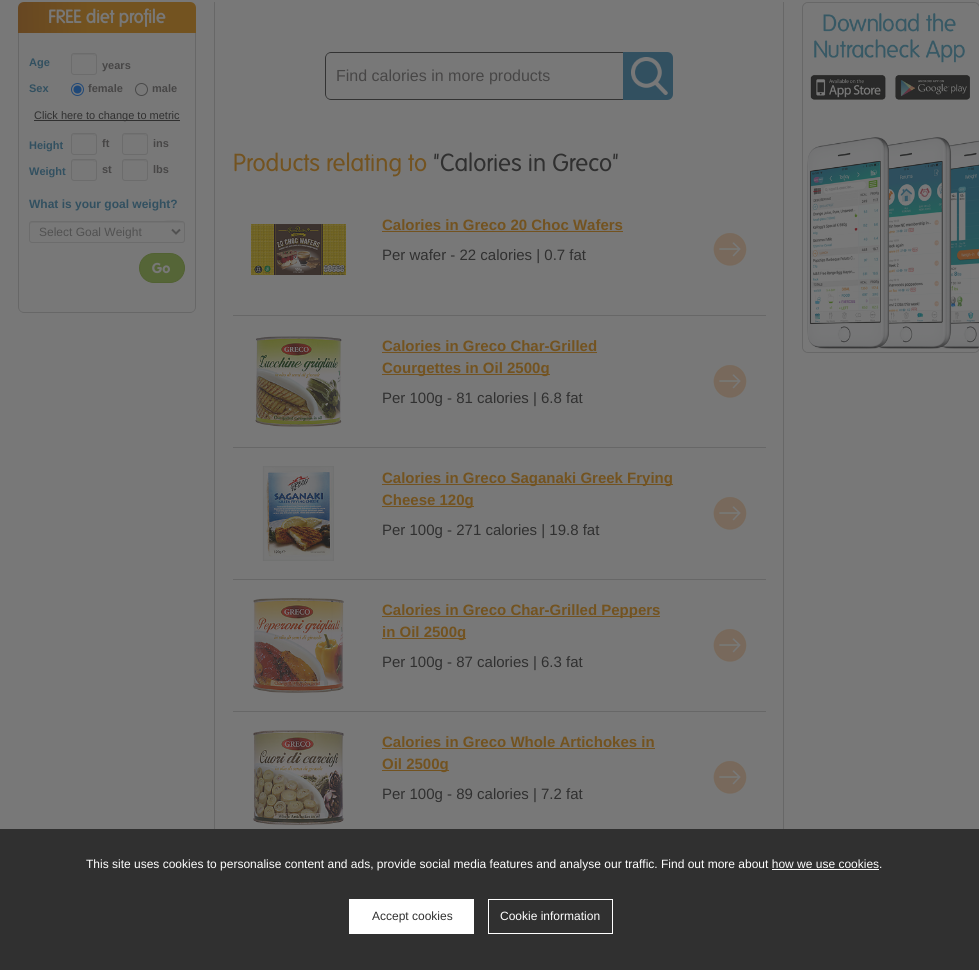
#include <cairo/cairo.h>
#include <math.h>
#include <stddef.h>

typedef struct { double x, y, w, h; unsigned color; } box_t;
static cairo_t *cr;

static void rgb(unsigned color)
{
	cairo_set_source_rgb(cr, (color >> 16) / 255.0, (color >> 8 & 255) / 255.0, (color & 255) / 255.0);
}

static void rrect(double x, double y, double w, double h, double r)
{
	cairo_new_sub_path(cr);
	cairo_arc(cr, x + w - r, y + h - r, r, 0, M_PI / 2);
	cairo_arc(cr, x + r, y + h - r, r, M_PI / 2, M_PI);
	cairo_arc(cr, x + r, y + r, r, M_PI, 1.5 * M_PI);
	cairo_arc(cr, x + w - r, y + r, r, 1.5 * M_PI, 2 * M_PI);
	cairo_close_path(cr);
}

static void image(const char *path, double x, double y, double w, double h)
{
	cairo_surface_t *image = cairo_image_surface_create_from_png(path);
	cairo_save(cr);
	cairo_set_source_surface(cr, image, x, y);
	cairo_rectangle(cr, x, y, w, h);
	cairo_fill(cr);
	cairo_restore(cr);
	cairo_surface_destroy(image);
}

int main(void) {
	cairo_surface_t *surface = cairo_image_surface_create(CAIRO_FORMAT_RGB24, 979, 970);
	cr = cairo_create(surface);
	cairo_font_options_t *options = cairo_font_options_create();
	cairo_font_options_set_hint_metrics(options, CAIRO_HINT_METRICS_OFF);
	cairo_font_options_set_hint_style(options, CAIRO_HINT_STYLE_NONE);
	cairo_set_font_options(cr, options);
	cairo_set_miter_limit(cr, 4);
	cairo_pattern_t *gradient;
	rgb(0x787878);
	cairo_paint(cr);
	gradient = cairo_pattern_create_linear(18, 18, 196, 17);
	cairo_pattern_add_color_stop_rgba(gradient, 0, 0.404, 0.278, 0.133, 1);
	cairo_pattern_add_color_stop_rgba(gradient, 0.4, 0.451, 0.325, 0.125, 1);
	cairo_set_source(cr, gradient);
	cairo_pattern_destroy(gradient);
	cairo_new_path(cr);
	cairo_move_to(cr, 24, 2);
	cairo_line_to(cr, 190, 2);
	cairo_curve_to(cr, 193.5, 2, 196, 4.5, 196, 8);
	cairo_line_to(cr, 196, 33);
	cairo_line_to(cr, 18, 33);
	cairo_line_to(cr, 18, 8);
	cairo_curve_to(cr, 18, 4.5, 20.5, 2, 24, 2);
	cairo_close_path(cr);
	cairo_fill(cr);
	rgb(0x676767);
	cairo_set_fill_rule(cr, CAIRO_FILL_RULE_EVEN_ODD);
	cairo_new_path(cr);
	cairo_move_to(cr, 18, 33);
	cairo_line_to(cr, 196, 33);
	cairo_line_to(cr, 196, 307);
	cairo_curve_to(cr, 196, 310, 193, 313, 190, 313);
	cairo_line_to(cr, 24, 313);
	cairo_curve_to(cr, 21, 313, 18, 310, 18, 307);
	cairo_close_path(cr);
	cairo_move_to(cr, 19, 33);
	cairo_line_to(cr, 195, 33);
	cairo_line_to(cr, 195, 307);
	cairo_curve_to(cr, 195, 310, 193, 312, 190, 312);
	cairo_line_to(cr, 24, 312);
	cairo_curve_to(cr, 21, 312, 19, 310, 19, 307);
	cairo_close_path(cr);
	cairo_fill(cr);
	rgb(0x727272);
	cairo_set_fill_rule(cr, CAIRO_FILL_RULE_WINDING);
	cairo_new_path(cr);
	cairo_move_to(cr, 74, 55);
	cairo_line_to(cr, 91, 55);
	cairo_curve_to(cr, 94, 55, 95.5, 55.5, 96, 56.5);
	cairo_curve_to(cr, 96, 53.5, 93.5, 54, 90.5, 54);
	cairo_line_to(cr, 77.5, 54);
	cairo_curve_to(cr, 74.5, 54, 72, 53.5, 72, 56.5);
	cairo_curve_to(cr, 72.5, 55.5, 73, 55, 74, 55);
	cairo_close_path(cr);
	cairo_fill(cr);
	rrect(71.5, 53.5, 25, 21, 2.5);
	rgb(0x6c6c6c);
	cairo_set_line_width(cr, 1);
	cairo_stroke(cr);
	cairo_arc(cr, 77.5, 89.5, 6, 0, 2 * M_PI);
	rgb(0x1f4878);
	cairo_stroke(cr);
	cairo_arc(cr, 77.5, 89.5, 4, 0, 2 * M_PI);
	cairo_fill(cr);
	cairo_arc(cr, 141.5, 89.5, 6, 0, 2 * M_PI);
	rgb(0x494949);
	cairo_stroke(cr);
	rgb(0x303030);
	cairo_rectangle(cr, 34, 120, 146, 1);
	cairo_fill(cr);
	rgb(0x727272);
	cairo_new_path(cr);
	cairo_move_to(cr, 74, 135);
	cairo_line_to(cr, 91, 135);
	cairo_curve_to(cr, 94, 135, 95.5, 135.5, 96, 136.5);
	cairo_curve_to(cr, 96, 133.5, 93.5, 134, 90.5, 134);
	cairo_line_to(cr, 77.5, 134);
	cairo_curve_to(cr, 74.5, 134, 72, 133.5, 72, 136.5);
	cairo_curve_to(cr, 72.5, 135.5, 73, 135, 74, 135);
	cairo_close_path(cr);
	cairo_fill(cr);
	rrect(71.5, 133.5, 25, 21, 2.5);
	rgb(0x6c6c6c);
	cairo_stroke(cr);
	rgb(0x727272);
	cairo_new_path(cr);
	cairo_move_to(cr, 125, 135);
	cairo_line_to(cr, 142, 135);
	cairo_curve_to(cr, 145, 135, 146.5, 135.5, 147, 136.5);
	cairo_curve_to(cr, 147, 133.5, 144.5, 134, 141.5, 134);
	cairo_line_to(cr, 128.5, 134);
	cairo_curve_to(cr, 125.5, 134, 123, 133.5, 123, 136.5);
	cairo_curve_to(cr, 123.5, 135.5, 124, 135, 125, 135);
	cairo_close_path(cr);
	cairo_fill(cr);
	rrect(122.5, 133.5, 25, 21, 2.5);
	rgb(0x6c6c6c);
	cairo_stroke(cr);
	rgb(0x727272);
	cairo_new_path(cr);
	cairo_move_to(cr, 74, 161);
	cairo_line_to(cr, 91, 161);
	cairo_curve_to(cr, 94, 161, 95.5, 161.5, 96, 162.5);
	cairo_curve_to(cr, 96, 159.5, 93.5, 160, 90.5, 160);
	cairo_line_to(cr, 77.5, 160);
	cairo_curve_to(cr, 74.5, 160, 72, 159.5, 72, 162.5);
	cairo_curve_to(cr, 72.5, 161.5, 73, 161, 74, 161);
	cairo_close_path(cr);
	cairo_fill(cr);
	rrect(71.5, 159.5, 25, 21, 2.5);
	rgb(0x6c6c6c);
	cairo_stroke(cr);
	rgb(0x727272);
	cairo_new_path(cr);
	cairo_move_to(cr, 125, 161);
	cairo_line_to(cr, 142, 161);
	cairo_curve_to(cr, 145, 161, 146.5, 161.5, 147, 162.5);
	cairo_curve_to(cr, 147, 159.5, 144.5, 160, 141.5, 160);
	cairo_line_to(cr, 128.5, 160);
	cairo_curve_to(cr, 125.5, 160, 123, 159.5, 123, 162.5);
	cairo_curve_to(cr, 123.5, 161.5, 124, 161, 125, 161);
	cairo_close_path(cr);
	cairo_fill(cr);
	rrect(122.5, 159.5, 25, 21, 2.5);
	rgb(0x6c6c6c);
	cairo_stroke(cr);
	rgb(0x727272);
	cairo_new_path(cr);
	cairo_move_to(cr, 32, 223);
	cairo_line_to(cr, 182, 223);
	cairo_curve_to(cr, 183, 223, 184, 224, 184, 225);
	cairo_curve_to(cr, 184, 216, 159, 222, 157, 222);
	cairo_line_to(cr, 31, 222);
	cairo_curve_to(cr, 30, 223, 30, 224, 30, 225);
	cairo_curve_to(cr, 30, 224, 31, 223, 32, 223);
	cairo_close_path(cr);
	cairo_fill(cr);
	rrect(29.5, 221.5, 155, 21, 2.5);
	rgb(0x6c6c6c);
	cairo_stroke(cr);
	cairo_new_path(cr);
	cairo_move_to(cr, 172, 229.5);
	cairo_line_to(cr, 176, 233.5);
	cairo_line_to(cr, 180, 229.5);
	rgb(0x515151);
	cairo_set_line_width(cr, 2);
	cairo_stroke(cr);
	rgb(0x556537);
	rrect(139.5, 253.5, 45, 29, 14.5);
	cairo_fill_preserve(cr);
	rgb(0x516132);
	cairo_set_line_width(cr, 1);
	cairo_stroke(cr);
	rgb(0x676767);
	cairo_rectangle(cr, 783, 2, 1, 827);
	cairo_fill(cr);
	cairo_rectangle(cr, 214, 2, 1, 827);
	cairo_fill(cr);
	rgb(0x333333);
	cairo_set_fill_rule(cr, CAIRO_FILL_RULE_EVEN_ODD);
	cairo_new_path(cr);
	cairo_move_to(cr, 331, 52);
	cairo_line_to(cr, 623, 52);
	cairo_line_to(cr, 623, 100);
	cairo_line_to(cr, 331, 100);
	cairo_curve_to(cr, 328, 100, 325, 97, 325, 94);
	cairo_line_to(cr, 325, 58);
	cairo_curve_to(cr, 325, 55, 328, 52, 331, 52);
	cairo_close_path(cr);
	cairo_move_to(cr, 331, 53);
	cairo_line_to(cr, 623, 53);
	cairo_line_to(cr, 623, 99);
	cairo_line_to(cr, 331, 99);
	cairo_curve_to(cr, 328, 99, 326, 97, 326, 94);
	cairo_line_to(cr, 326, 58);
	cairo_curve_to(cr, 326, 55, 328, 53, 331, 53);
	cairo_close_path(cr);
	cairo_fill(cr);
	rgb(0x325060);
	cairo_new_path(cr);
	cairo_move_to(cr, 623, 52);
	cairo_line_to(cr, 667, 52);
	cairo_curve_to(cr, 670.5, 52, 673, 54.5, 673, 58);
	cairo_line_to(cr, 673, 94);
	cairo_curve_to(cr, 673, 97.5, 670.5, 100, 667, 100);
	cairo_line_to(cr, 623, 100);
	cairo_close_path(cr);
	cairo_fill(cr);
	image("img/1.png", 631, 57, 37, 38);
	image("img/2.png", 251, 224, 95, 51);
	rgb(0x735320);
	cairo_rectangle(cr, 382, 231, 241, 1);
	cairo_fill(cr);
	rgb(0x676767);
	cairo_rectangle(cr, 233, 315, 533, 1);
	cairo_fill(cr);
	image("img/3.png", 713, 233, 34, 33);
	image("img/4.png", 255, 336, 87, 91);
	{
		static const box_t items[] = {
			{382, 352, 215, 1, 0x735320},
			{382, 374, 168, 1, 0x735320},
			{233, 447, 533, 1, 0x676767},
		};
		for (size_t i = 0; i < sizeof items / sizeof *items; i++) {
			rgb(items[i].color);
			cairo_rectangle(cr, items[i].x, items[i].y, items[i].w, items[i].h);
			cairo_fill(cr);
		}
	}
	image("img/3.png", 713, 365, 34, 33);
	image("img/5.png", 262, 466, 72, 95);
	{
		static const box_t items[] = {
			{382, 484, 291, 1, 0x735320},
			{382, 506, 92, 1, 0x735320},
			{233, 579, 533, 1, 0x676767},
		};
		for (size_t i = 0; i < sizeof items / sizeof *items; i++) {
			rgb(items[i].color);
			cairo_rectangle(cr, items[i].x, items[i].y, items[i].w, items[i].h);
			cairo_fill(cr);
		}
	}
	image("img/3.png", 713, 497, 34, 33);
	image("img/6.png", 253, 598, 91, 95);
	{
		static const box_t items[] = {
			{382, 616, 278, 1, 0x735320},
			{382, 638, 84, 1, 0x735320},
			{233, 711, 533, 1, 0x676767},
		};
		for (size_t i = 0; i < sizeof items / sizeof *items; i++) {
			rgb(items[i].color);
			cairo_rectangle(cr, items[i].x, items[i].y, items[i].w, items[i].h);
			cairo_fill(cr);
		}
	}
	image("img/3.png", 713, 629, 34, 33);
	image("img/7.png", 253, 730, 91, 95);
	rgb(0x735320);
	cairo_rectangle(cr, 382, 748, 273, 1);
	cairo_fill(cr);
	cairo_rectangle(cr, 382, 770, 67, 1);
	cairo_fill(cr);
	image("img/3.png", 713, 761, 34, 33);
	rrect(802.5, 2.5, 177, 350, 5.5);
	rgb(0x676767);
	cairo_stroke(cr);
	image("img/8.png", 803, 3, 176, 349);
	{
		static const box_t items[] = {
			{0, 829, 979, 141, 0x303030},
			{772, 869, 107, 1, 0xffffff},
			{349, 899, 125, 35, 0xffffff},
		};
		for (size_t i = 0; i < sizeof items / sizeof *items; i++) {
			rgb(items[i].color);
			cairo_rectangle(cr, items[i].x, items[i].y, items[i].w, items[i].h);
			cairo_fill(cr);
		}
	}
	cairo_rectangle(cr, 488.5, 899.5, 124, 34);
	cairo_stroke(cr);
	cairo_select_font_face(cr, "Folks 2", CAIRO_FONT_SLANT_NORMAL, CAIRO_FONT_WEIGHT_BOLD);
	cairo_set_font_size(cr, 18);
	rgb(0x787878);
	cairo_move_to(cr, 48, 23);
	cairo_show_text(cr, "FREE diet profile");
	cairo_select_font_face(cr, "Liberation Sans", CAIRO_FONT_SLANT_NORMAL, CAIRO_FONT_WEIGHT_BOLD);
	cairo_set_font_size(cr, 11);
	rgb(0x325060);
	cairo_move_to(cr, 29, 66);
	cairo_show_text(cr, "Age");
	rgb(0x474646);
	cairo_move_to(cr, 102, 69);
	cairo_show_text(cr, "years");
	rgb(0x325060);
	cairo_move_to(cr, 29, 92);
	cairo_show_text(cr, "Sex");
	rgb(0x474646);
	cairo_move_to(cr, 88, 92);
	cairo_show_text(cr, "female");
	cairo_move_to(cr, 152, 92);
	cairo_show_text(cr, "male");
	cairo_select_font_face(cr, "Liberation Sans", CAIRO_FONT_SLANT_NORMAL, CAIRO_FONT_WEIGHT_NORMAL);
	rgb(0x303030);
	cairo_move_to(cr, 34, 119);
	cairo_show_text(cr, "Click here to change to metric");
	cairo_select_font_face(cr, "Liberation Sans", CAIRO_FONT_SLANT_NORMAL, CAIRO_FONT_WEIGHT_BOLD);
	rgb(0x325060);
	cairo_move_to(cr, 29, 149);
	cairo_show_text(cr, "Height");
	rgb(0x474646);
	cairo_move_to(cr, 102, 147);
	cairo_show_text(cr, "ft");
	cairo_move_to(cr, 153, 147);
	cairo_show_text(cr, "ins");
	rgb(0x325060);
	cairo_move_to(cr, 29, 175);
	cairo_show_text(cr, "Weight");
	rgb(0x474646);
	cairo_move_to(cr, 102, 173);
	cairo_show_text(cr, "st");
	cairo_move_to(cr, 153, 173);
	cairo_show_text(cr, "lbs");
	cairo_set_font_size(cr, 12);
	rgb(0x325060);
	cairo_move_to(cr, 29, 208);
	cairo_show_text(cr, "What is your goal weight?");
	cairo_select_font_face(cr, "Liberation Sans", CAIRO_FONT_SLANT_NORMAL, CAIRO_FONT_WEIGHT_NORMAL);
	rgb(0x515151);
	cairo_move_to(cr, 39, 236);
	cairo_show_text(cr, "Select Goal Weight");
	cairo_select_font_face(cr, "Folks", CAIRO_FONT_SLANT_NORMAL, CAIRO_FONT_WEIGHT_BOLD);
	cairo_set_font_size(cr, 14);
	rgb(0x787878);
	cairo_move_to(cr, 152, 273);
	cairo_show_text(cr, "Go");
	cairo_select_font_face(cr, "Liberation Sans", CAIRO_FONT_SLANT_NORMAL, CAIRO_FONT_WEIGHT_NORMAL);
	cairo_set_font_size(cr, 16);
	rgb(0x474646);
	cairo_move_to(cr, 336, 81);
	cairo_show_text(cr, "Find calories in more products");
	cairo_select_font_face(cr, "Folks", CAIRO_FONT_SLANT_NORMAL, CAIRO_FONT_WEIGHT_NORMAL);
	cairo_set_font_size(cr, 24);
	rgb(0x735320);
	cairo_move_to(cr, 233, 171);
	cairo_show_text(cr, "Products relating to");
	rgb(0x303030);
	cairo_move_to(cr, 433, 171);
	cairo_show_text(cr, "\"Calories in Greco\"");
	cairo_select_font_face(cr, "Liberation Sans", CAIRO_FONT_SLANT_NORMAL, CAIRO_FONT_WEIGHT_BOLD);
	cairo_set_font_size(cr, 15);
	rgb(0x735320);
	cairo_move_to(cr, 382, 230);
	cairo_show_text(cr, "Calories in Greco 20 Choc Wafers");
	cairo_select_font_face(cr, "Liberation Sans", CAIRO_FONT_SLANT_NORMAL, CAIRO_FONT_WEIGHT_NORMAL);
	rgb(0x303030);
	cairo_move_to(cr, 382, 260);
	cairo_show_text(cr, "Per wafer - 22 calories | 0.7 fat");
	cairo_select_font_face(cr, "Liberation Sans", CAIRO_FONT_SLANT_NORMAL, CAIRO_FONT_WEIGHT_BOLD);
	rgb(0x735320);
	cairo_move_to(cr, 382, 351);
	cairo_show_text(cr, "Calories in Greco Char-Grilled");
	cairo_move_to(cr, 382, 373);
	cairo_show_text(cr, "Courgettes in Oil 2500g");
	cairo_select_font_face(cr, "Liberation Sans", CAIRO_FONT_SLANT_NORMAL, CAIRO_FONT_WEIGHT_NORMAL);
	rgb(0x303030);
	cairo_move_to(cr, 382, 403);
	cairo_show_text(cr, "Per 100g - 81 calories | 6.8 fat");
	cairo_select_font_face(cr, "Liberation Sans", CAIRO_FONT_SLANT_NORMAL, CAIRO_FONT_WEIGHT_BOLD);
	rgb(0x735320);
	cairo_move_to(cr, 382, 483);
	cairo_show_text(cr, "Calories in Greco Saganaki Greek Frying");
	cairo_move_to(cr, 382, 505);
	cairo_show_text(cr, "Cheese 120g");
	cairo_select_font_face(cr, "Liberation Sans", CAIRO_FONT_SLANT_NORMAL, CAIRO_FONT_WEIGHT_NORMAL);
	rgb(0x303030);
	cairo_move_to(cr, 382, 535);
	cairo_show_text(cr, "Per 100g - 271 calories | 19.8 fat");
	cairo_select_font_face(cr, "Liberation Sans", CAIRO_FONT_SLANT_NORMAL, CAIRO_FONT_WEIGHT_BOLD);
	rgb(0x735320);
	cairo_move_to(cr, 382, 615);
	cairo_show_text(cr, "Calories in Greco Char-Grilled Peppers");
	cairo_move_to(cr, 382, 637);
	cairo_show_text(cr, "in Oil 2500g");
	cairo_select_font_face(cr, "Liberation Sans", CAIRO_FONT_SLANT_NORMAL, CAIRO_FONT_WEIGHT_NORMAL);
	rgb(0x303030);
	cairo_move_to(cr, 382, 667);
	cairo_show_text(cr, "Per 100g - 87 calories | 6.3 fat");
	cairo_select_font_face(cr, "Liberation Sans", CAIRO_FONT_SLANT_NORMAL, CAIRO_FONT_WEIGHT_BOLD);
	rgb(0x735320);
	cairo_move_to(cr, 382, 747);
	cairo_show_text(cr, "Calories in Greco Whole Artichokes in");
	cairo_move_to(cr, 382, 769);
	cairo_show_text(cr, "Oil 2500g");
	cairo_select_font_face(cr, "Liberation Sans", CAIRO_FONT_SLANT_NORMAL, CAIRO_FONT_WEIGHT_NORMAL);
	rgb(0x303030);
	cairo_move_to(cr, 382, 799);
	cairo_show_text(cr, "Per 100g - 89 calories | 7.2 fat");
	cairo_set_font_size(cr, 12);
	rgb(0xffffff);
	cairo_move_to(cr, 86, 868);
	cairo_show_text(cr, "This site uses cookies to personalise content and ads, provide social media features and analyse our traffic. Find out more about how we use cookies.");
	rgb(0x303030);
	cairo_move_to(cr, 372, 920);
	cairo_show_text(cr, "Accept cookies");
	rgb(0xffffff);
	cairo_move_to(cr, 500, 920);
	cairo_show_text(cr, "Cookie information");
	cairo_surface_write_to_png(surface, "page.png");
	cairo_font_options_destroy(options);
	cairo_destroy(cr);
	cairo_surface_destroy(surface);
	return 0;
}
